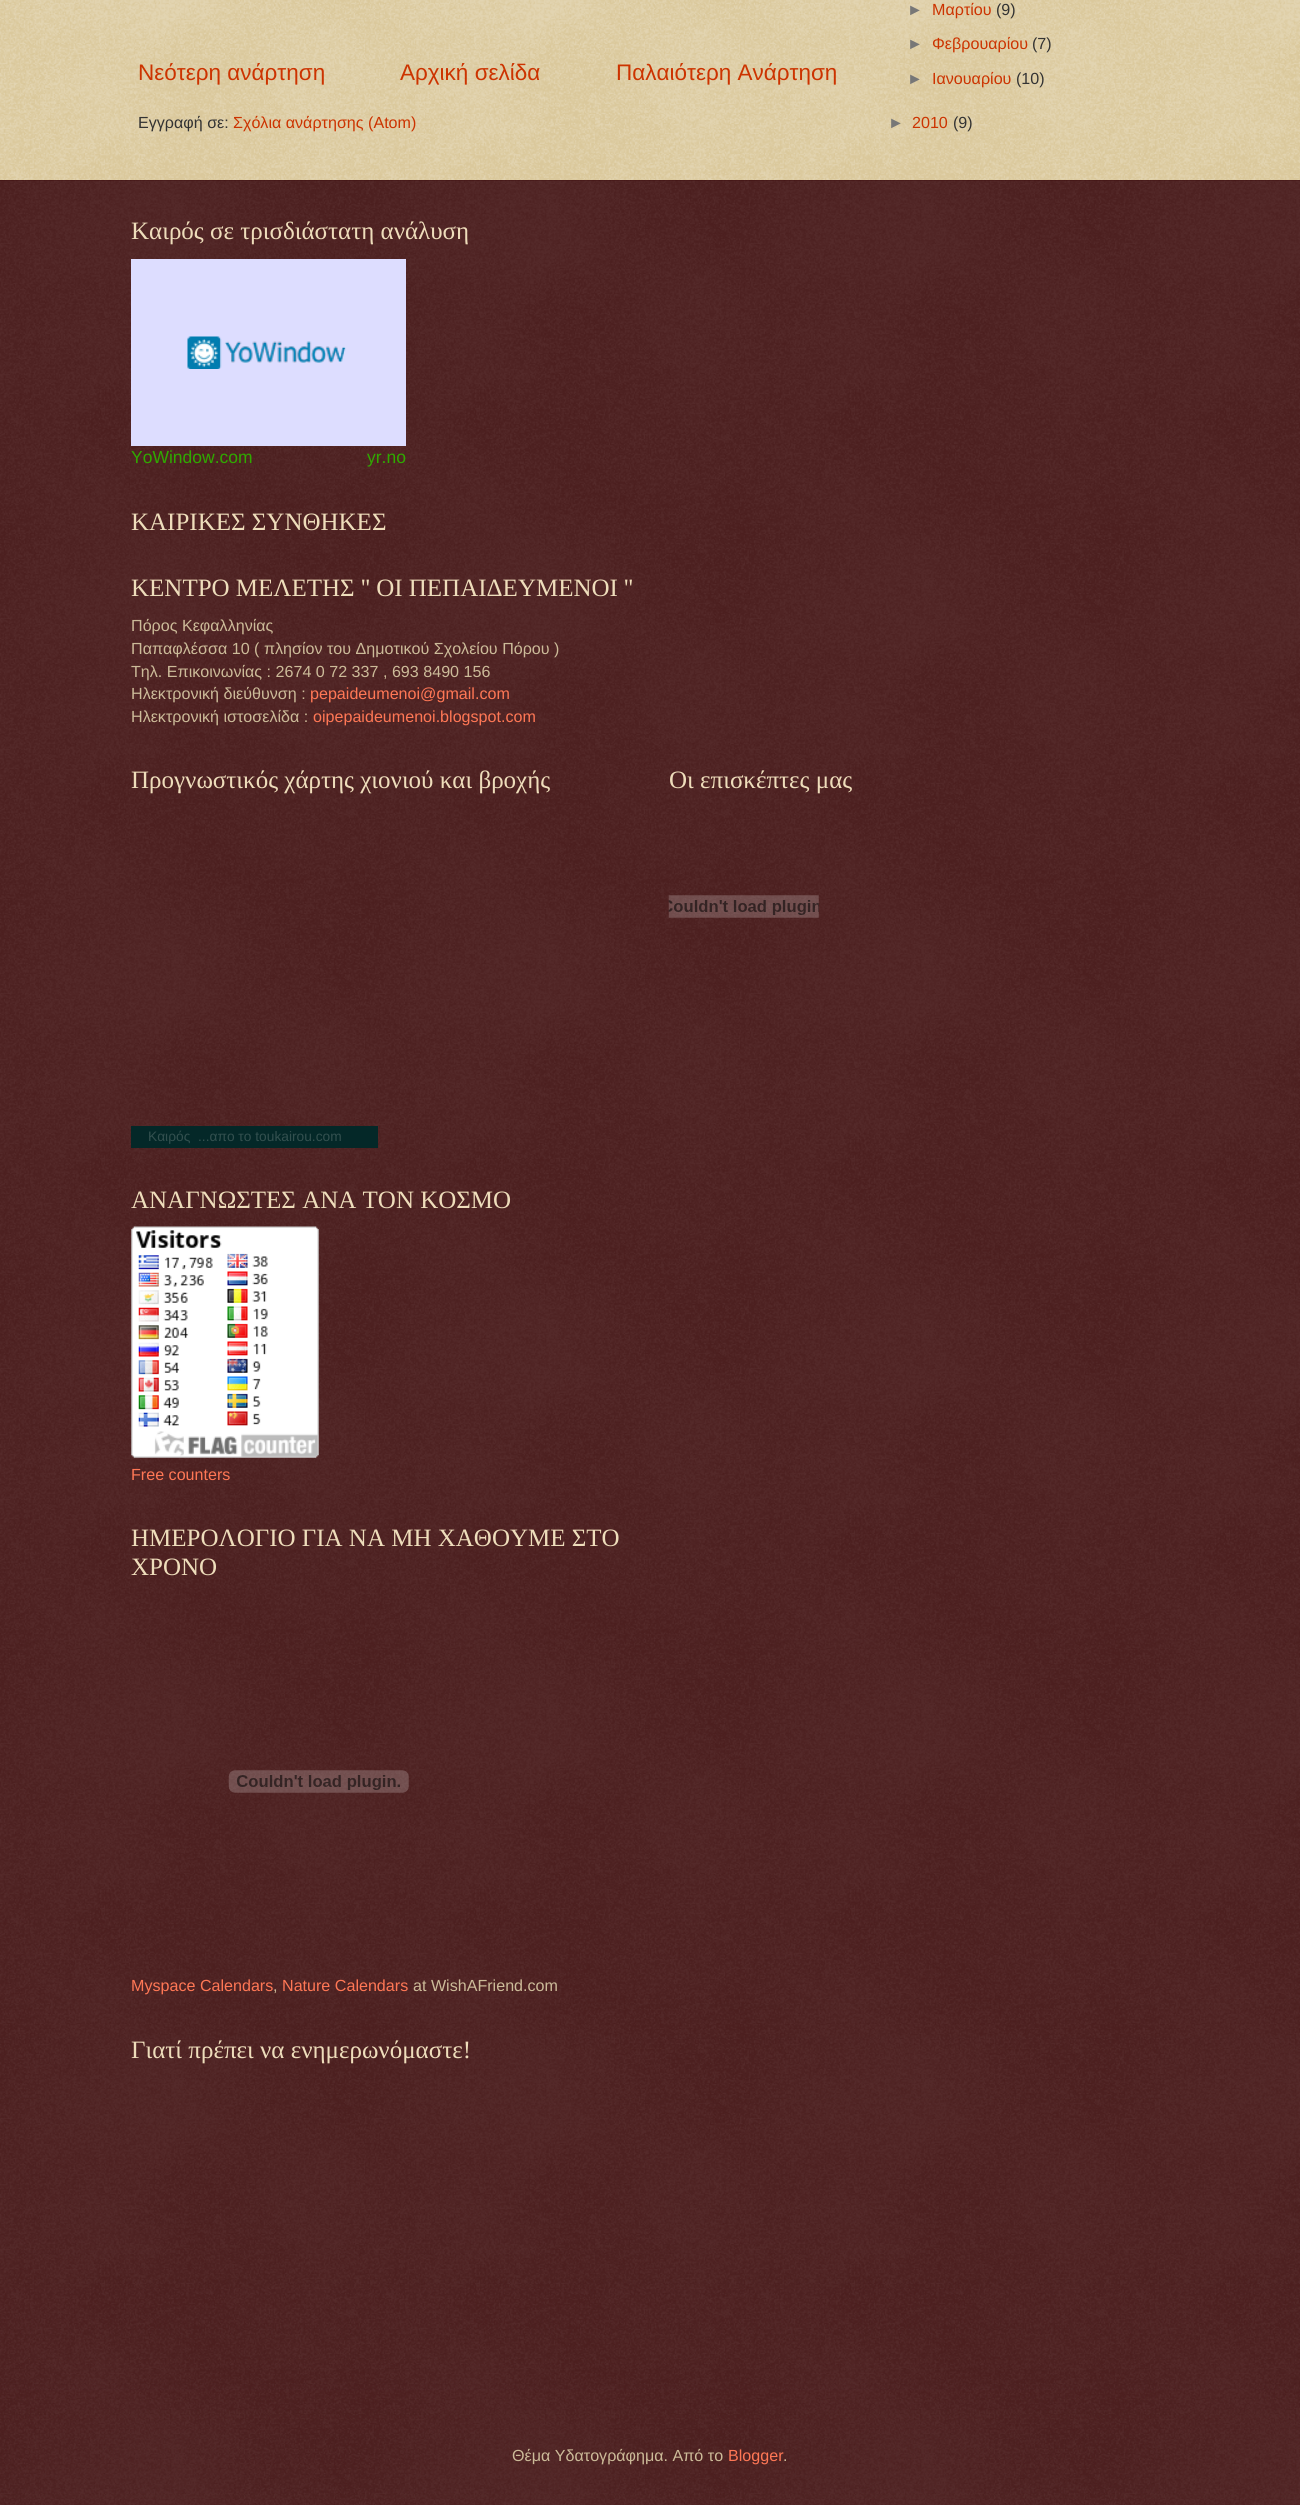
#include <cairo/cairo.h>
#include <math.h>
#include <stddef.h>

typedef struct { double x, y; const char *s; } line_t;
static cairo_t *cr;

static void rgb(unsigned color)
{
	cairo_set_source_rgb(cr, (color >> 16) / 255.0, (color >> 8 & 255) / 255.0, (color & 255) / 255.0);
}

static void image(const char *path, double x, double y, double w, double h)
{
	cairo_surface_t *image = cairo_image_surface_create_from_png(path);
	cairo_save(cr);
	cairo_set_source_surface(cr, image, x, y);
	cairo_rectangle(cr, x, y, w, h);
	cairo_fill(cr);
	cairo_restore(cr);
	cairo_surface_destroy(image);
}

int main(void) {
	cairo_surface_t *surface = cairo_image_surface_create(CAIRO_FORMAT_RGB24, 1300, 2505);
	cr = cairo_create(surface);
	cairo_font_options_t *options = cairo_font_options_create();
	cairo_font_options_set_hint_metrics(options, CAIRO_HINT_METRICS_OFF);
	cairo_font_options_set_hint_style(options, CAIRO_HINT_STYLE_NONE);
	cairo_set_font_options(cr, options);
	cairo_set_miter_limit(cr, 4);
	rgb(0xc0a154);
	cairo_paint(cr);
	image("img/1.png", 0, 0, 1300, 180);
	rgb(0x330000);
	cairo_rectangle(cr, 0, 180, 1300, 2325);
	cairo_fill(cr);
	image("img/2.png", 0, 180, 1300, 2325);
	rgb(0xddddff);
	cairo_rectangle(cr, 131, 259, 275, 187);
	cairo_fill(cr);
	image("img/3.png", 187, 336, 159, 33);
	rgb(0x042828);
	cairo_rectangle(cr, 131, 1126, 247, 22);
	cairo_fill(cr);
	image("img/4.png", 131, 1226, 188, 232);
	image("img/5.png", 228, 1770, 181, 23);
	image("img/6.png", 668, 895, 151, 23);
	cairo_select_font_face(cr, "Liberation Sans", CAIRO_FONT_SLANT_NORMAL, CAIRO_FONT_WEIGHT_NORMAL);
	cairo_set_font_size(cr, 22.5);
	rgb(0xcc3300);
	{
		static const line_t items[] = {
			{138, 80, "Νεότερη ανάρτηση"},
			{400, 80, "Αρχική σελίδα"},
			{616, 80, "Παλαιότερη Ανάρτηση"},
		};
		for (size_t i = 0; i < sizeof items / sizeof *items; i++) {
			cairo_move_to(cr, items[i].x, items[i].y);
			cairo_show_text(cr, items[i].s);
		}
	}
	cairo_set_font_size(cr, 16.1);
	rgb(0x333333);
	cairo_move_to(cr, 138, 128);
	cairo_show_text(cr, "Εγγραφή σε:");
	rgb(0xcc3300);
	cairo_move_to(cr, 233, 128);
	cairo_show_text(cr, "Σχόλια ανάρτησης (Atom)");
	rgb(0x777777);
	cairo_move_to(cr, 907, 15);
	cairo_show_text(cr, "►");
	rgb(0xcc3300);
	cairo_move_to(cr, 932, 15);
	cairo_show_text(cr, "Μαρτίου");
	rgb(0x333333);
	cairo_move_to(cr, 996, 15);
	cairo_show_text(cr, "(9)");
	rgb(0x777777);
	cairo_move_to(cr, 907, 49);
	cairo_show_text(cr, "►");
	rgb(0xcc3300);
	cairo_move_to(cr, 932, 49);
	cairo_show_text(cr, "Φεβρουαρίου");
	rgb(0x333333);
	cairo_move_to(cr, 1032, 49);
	cairo_show_text(cr, "(7)");
	rgb(0x777777);
	cairo_move_to(cr, 907, 84);
	cairo_show_text(cr, "►");
	rgb(0xcc3300);
	cairo_move_to(cr, 932, 84);
	cairo_show_text(cr, "Ιανουαρίου");
	rgb(0x333333);
	cairo_move_to(cr, 1016, 84);
	cairo_show_text(cr, "(10)");
	rgb(0x777777);
	cairo_move_to(cr, 888, 128);
	cairo_show_text(cr, "►");
	rgb(0xcc3300);
	cairo_move_to(cr, 912, 128);
	cairo_show_text(cr, "2010");
	rgb(0x333333);
	cairo_move_to(cr, 953, 128);
	cairo_show_text(cr, "(9)");
	cairo_select_font_face(cr, "Liberation Serif", CAIRO_FONT_SLANT_NORMAL, CAIRO_FONT_WEIGHT_NORMAL);
	cairo_set_font_size(cr, 25);
	rgb(0xeeddbb);
	cairo_move_to(cr, 131, 239);
	cairo_show_text(cr, "Καιρός σε τρισδιάστατη ανάλυση");
	cairo_select_font_face(cr, "Liberation Sans", CAIRO_FONT_SLANT_NORMAL, CAIRO_FONT_WEIGHT_NORMAL);
	cairo_set_font_size(cr, 17.5);
	rgb(0x2fa900);
	cairo_move_to(cr, 131, 463);
	cairo_show_text(cr, "YoWindow.com");
	cairo_move_to(cr, 367, 463);
	cairo_show_text(cr, "yr.no");
	cairo_select_font_face(cr, "Liberation Serif", CAIRO_FONT_SLANT_NORMAL, CAIRO_FONT_WEIGHT_NORMAL);
	cairo_set_font_size(cr, 25);
	rgb(0xeeddbb);
	cairo_move_to(cr, 131, 530);
	cairo_show_text(cr, "ΚΑΙΡΙΚΕΣ ΣΥΝΘΗΚΕΣ");
	cairo_move_to(cr, 131, 596);
	cairo_show_text(cr, "ΚΕΝΤΡΟ ΜΕΛΕΤΗΣ '' ΟΙ ΠΕΠΑΙΔΕΥΜΕΝΟΙ ''");
	cairo_select_font_face(cr, "Liberation Sans", CAIRO_FONT_SLANT_NORMAL, CAIRO_FONT_WEIGHT_NORMAL);
	cairo_set_font_size(cr, 16.1);
	rgb(0xccbb99);
	{
		static const line_t items[] = {
			{131, 631, "Πόρος Κεφαλληνίας"},
			{131, 654, "Παπαφλέσσα 10 ( πλησίον του Δημοτικού Σχολείου Πόρου )"},
			{131, 677, "Τηλ. Επικοινωνίας : 2674 0 72 337 , 693 8490 156"},
			{131, 699, "Ηλεκτρονική διεύθυνση :"},
		};
		for (size_t i = 0; i < sizeof items / sizeof *items; i++) {
			cairo_move_to(cr, items[i].x, items[i].y);
			cairo_show_text(cr, items[i].s);
		}
	}
	rgb(0xff7755);
	cairo_move_to(cr, 310, 699);
	cairo_show_text(cr, "pepaideumenoi@gmail.com");
	rgb(0xccbb99);
	cairo_move_to(cr, 131, 722);
	cairo_show_text(cr, "Ηλεκτρονική ιστοσελίδα :");
	rgb(0xff7755);
	cairo_move_to(cr, 313, 722);
	cairo_show_text(cr, "oipepaideumenoi.blogspot.com");
	cairo_select_font_face(cr, "Liberation Serif", CAIRO_FONT_SLANT_NORMAL, CAIRO_FONT_WEIGHT_NORMAL);
	cairo_set_font_size(cr, 25);
	rgb(0xeeddbb);
	cairo_move_to(cr, 131, 788);
	cairo_show_text(cr, "Προγνωστικός χάρτης χιονιού και βροχής");
	cairo_select_font_face(cr, "Liberation Sans", CAIRO_FONT_SLANT_NORMAL, CAIRO_FONT_WEIGHT_NORMAL);
	cairo_set_font_size(cr, 13.75);
	rgb(0x33504f);
	cairo_move_to(cr, 148, 1141);
	cairo_show_text(cr, "Καιρός");
	cairo_move_to(cr, 198, 1141);
	cairo_show_text(cr, "...απο το toukairou.com");
	cairo_select_font_face(cr, "Liberation Serif", CAIRO_FONT_SLANT_NORMAL, CAIRO_FONT_WEIGHT_NORMAL);
	cairo_set_font_size(cr, 25);
	rgb(0xeeddbb);
	cairo_move_to(cr, 131, 1208);
	cairo_show_text(cr, "ΑΝΑΓΝΩΣΤΕΣ ΑΝΑ ΤΟΝ ΚΟΣΜΟ");
	cairo_select_font_face(cr, "Liberation Sans", CAIRO_FONT_SLANT_NORMAL, CAIRO_FONT_WEIGHT_NORMAL);
	cairo_set_font_size(cr, 16.1);
	rgb(0xff7755);
	cairo_move_to(cr, 131, 1480);
	cairo_show_text(cr, "Free counters");
	cairo_select_font_face(cr, "Liberation Serif", CAIRO_FONT_SLANT_NORMAL, CAIRO_FONT_WEIGHT_NORMAL);
	cairo_set_font_size(cr, 25);
	rgb(0xeeddbb);
	cairo_move_to(cr, 131, 1546);
	cairo_show_text(cr, "ΗΜΕΡΟΛΟΓΙΟ ΓΙΑ ΝΑ ΜΗ ΧΑΘΟΥΜΕ ΣΤΟ");
	cairo_move_to(cr, 131, 1575);
	cairo_show_text(cr, "ΧΡΟΝΟ");
	cairo_select_font_face(cr, "Liberation Sans", CAIRO_FONT_SLANT_NORMAL, CAIRO_FONT_WEIGHT_NORMAL);
	cairo_set_font_size(cr, 16.1);
	rgb(0xff7755);
	cairo_move_to(cr, 131, 1991);
	cairo_show_text(cr, "Myspace Calendars");
	rgb(0xccbb99);
	cairo_move_to(cr, 273, 1991);
	cairo_show_text(cr, ",");
	rgb(0xff7755);
	cairo_move_to(cr, 282, 1991);
	cairo_show_text(cr, "Nature Calendars");
	rgb(0xccbb99);
	cairo_move_to(cr, 413, 1991);
	cairo_show_text(cr, "at WishAFriend.com");
	cairo_select_font_face(cr, "Liberation Serif", CAIRO_FONT_SLANT_NORMAL, CAIRO_FONT_WEIGHT_NORMAL);
	cairo_set_font_size(cr, 25);
	rgb(0xeeddbb);
	cairo_move_to(cr, 131, 2058);
	cairo_show_text(cr, "Γιατί πρέπει να ενημερωνόμαστε!");
	cairo_move_to(cr, 669, 788);
	cairo_show_text(cr, "Οι επισκέπτες μας");
	cairo_select_font_face(cr, "Liberation Sans", CAIRO_FONT_SLANT_NORMAL, CAIRO_FONT_WEIGHT_NORMAL);
	cairo_set_font_size(cr, 16.1);
	rgb(0xccbb99);
	cairo_move_to(cr, 512, 2461);
	cairo_show_text(cr, "Θέμα Υδατογράφημα. Από το");
	rgb(0xff7755);
	cairo_move_to(cr, 728, 2461);
	cairo_show_text(cr, "Blogger");
	rgb(0xccbb99);
	cairo_move_to(cr, 783, 2461);
	cairo_show_text(cr, ".");
	cairo_surface_write_to_png(surface, "page.png");
	cairo_font_options_destroy(options);
	cairo_destroy(cr);
	cairo_surface_destroy(surface);
	return 0;
}
